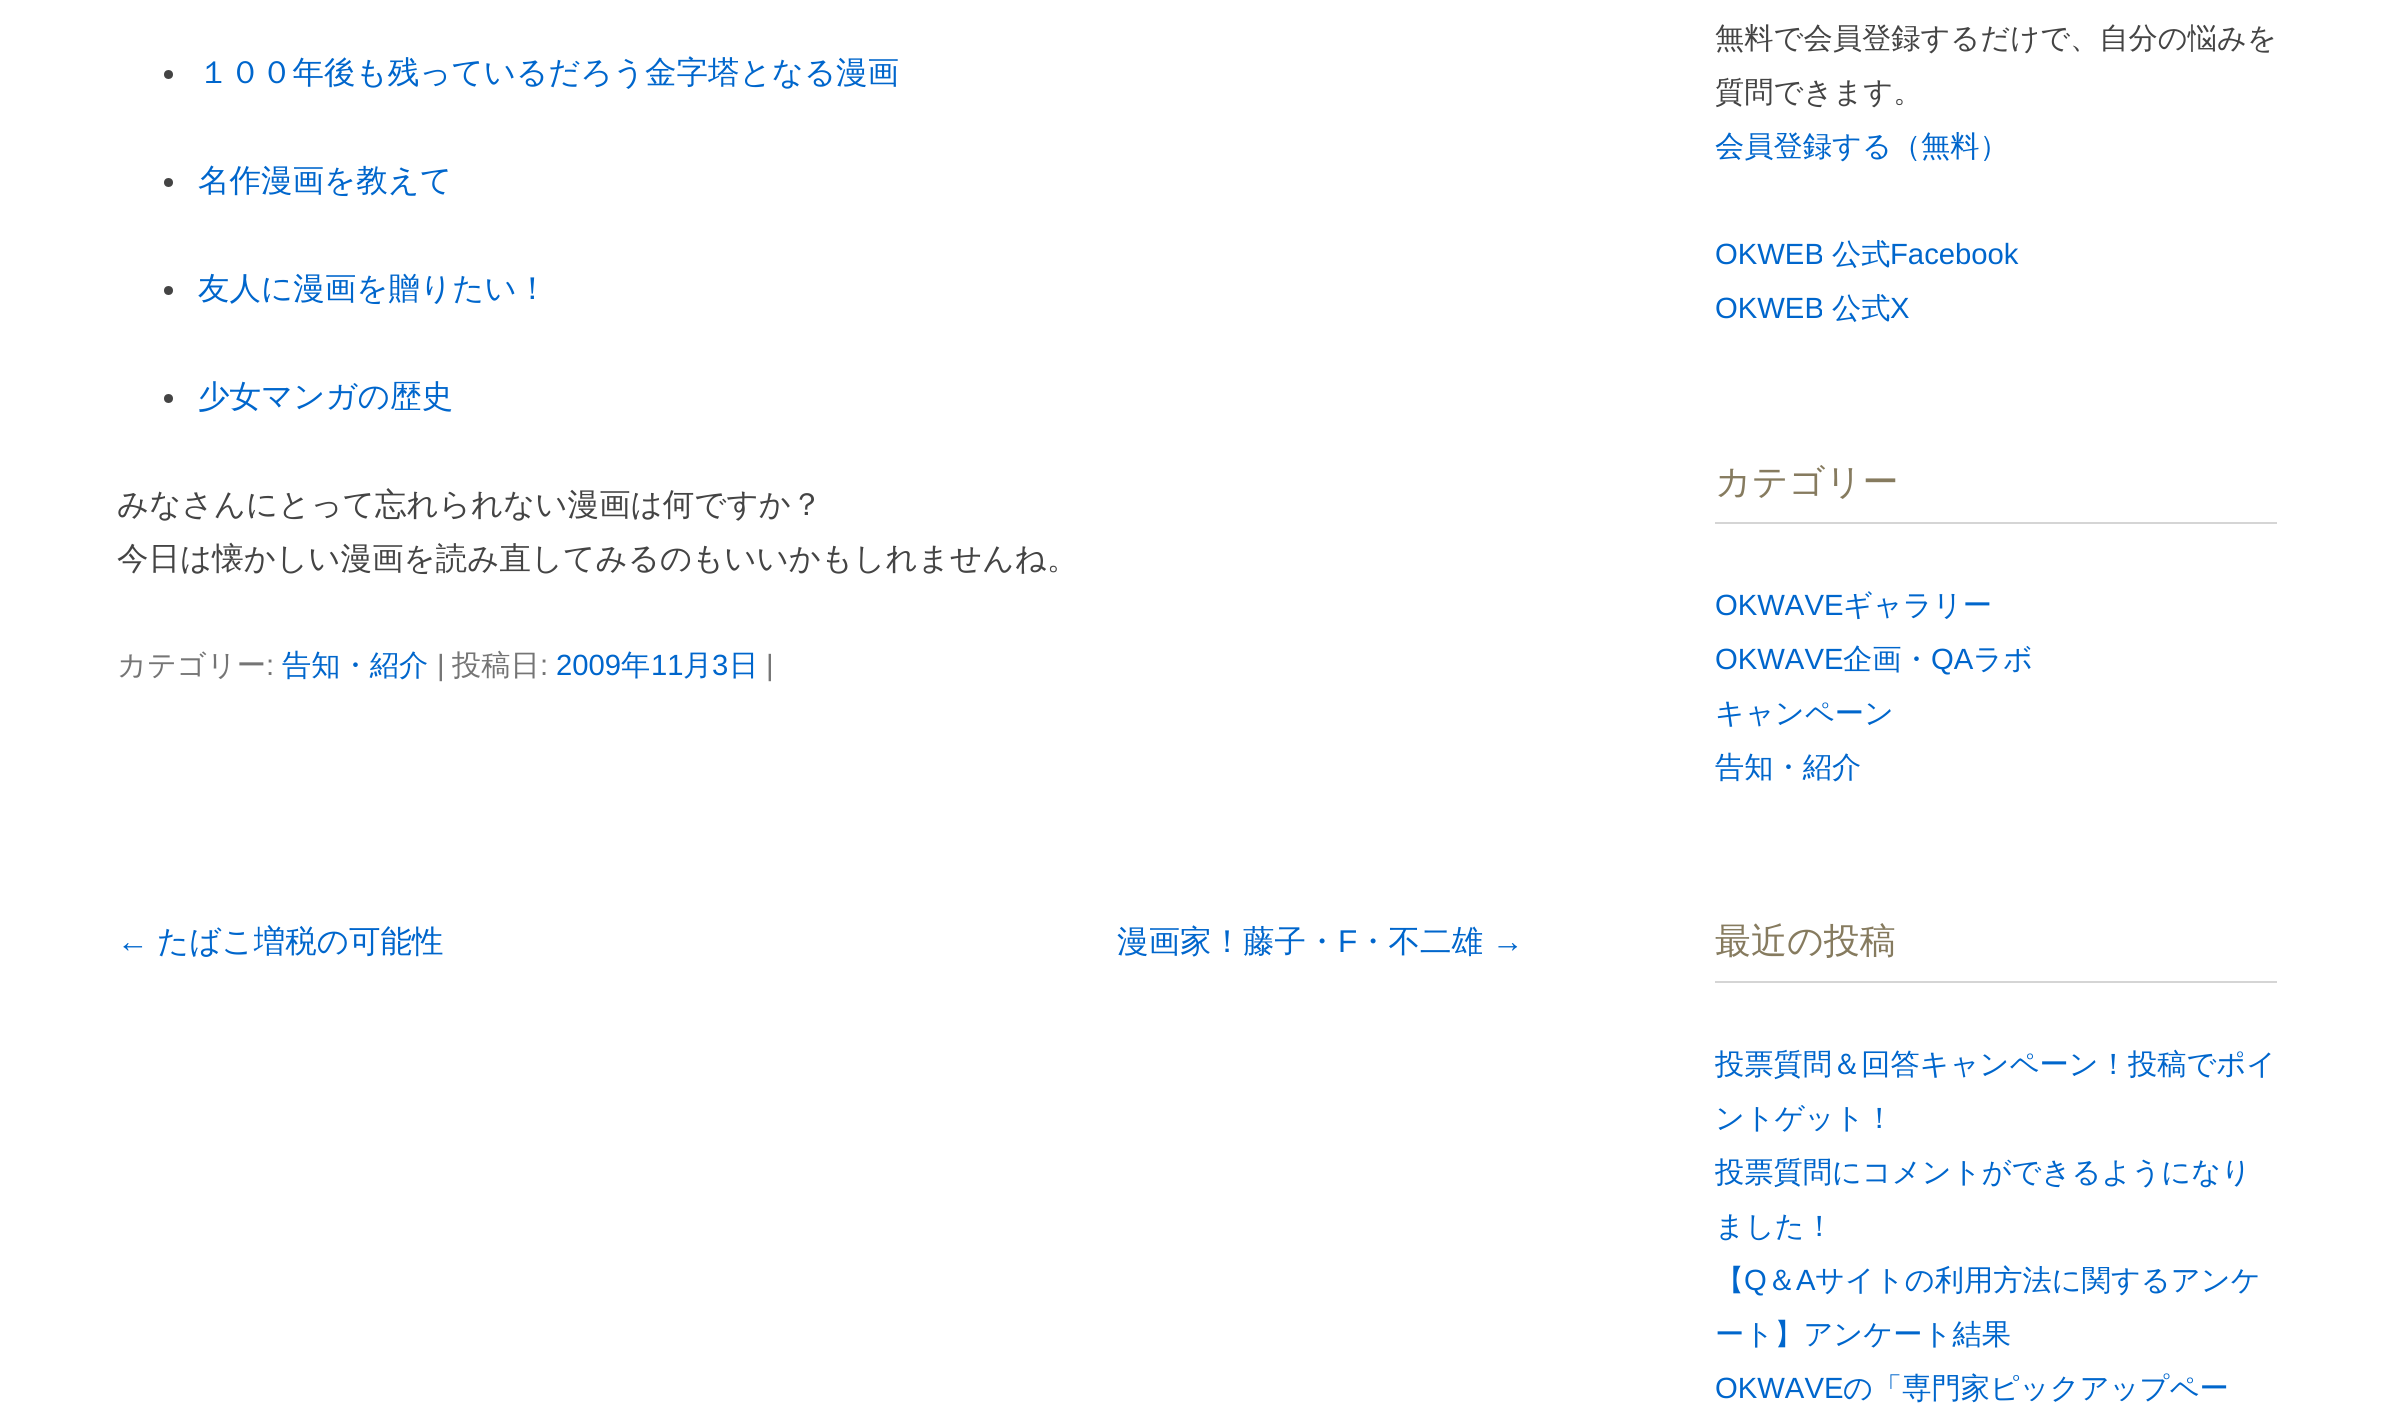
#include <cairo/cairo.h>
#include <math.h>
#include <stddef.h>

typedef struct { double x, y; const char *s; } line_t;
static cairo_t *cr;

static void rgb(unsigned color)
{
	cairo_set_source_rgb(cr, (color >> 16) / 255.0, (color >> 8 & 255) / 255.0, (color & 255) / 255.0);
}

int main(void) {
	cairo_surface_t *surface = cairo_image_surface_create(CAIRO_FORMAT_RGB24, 2394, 1417);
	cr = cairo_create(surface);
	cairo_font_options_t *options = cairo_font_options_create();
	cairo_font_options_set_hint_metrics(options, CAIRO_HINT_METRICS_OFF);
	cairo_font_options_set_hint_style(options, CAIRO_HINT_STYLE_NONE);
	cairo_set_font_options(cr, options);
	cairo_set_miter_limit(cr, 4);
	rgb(0xffffff);
	cairo_paint(cr);
	rgb(0x444444);
	cairo_arc(cr, 168.5, 74.5, 4.5, 0, 2 * M_PI);
	cairo_fill(cr);
	cairo_arc(cr, 168.5, 182.5, 4.5, 0, 2 * M_PI);
	cairo_fill(cr);
	cairo_arc(cr, 168.5, 290.5, 4.5, 0, 2 * M_PI);
	cairo_fill(cr);
	cairo_arc(cr, 168.5, 398.5, 4.5, 0, 2 * M_PI);
	cairo_fill(cr);
	rgb(0xd5d5d5);
	cairo_rectangle(cr, 1715, 522, 562, 2);
	cairo_fill(cr);
	cairo_rectangle(cr, 1715, 981, 562, 2);
	cairo_fill(cr);
	cairo_select_font_face(cr, "WenQuanYi Zen Hei Medium", CAIRO_FONT_SLANT_NORMAL, CAIRO_FONT_WEIGHT_NORMAL);
	cairo_set_font_size(cr, 31.5);
	rgb(0x0066cc);
	{
		static const line_t items[] = {
			{198, 83, "１００年後も残っているだろう金字塔となる漫画"},
			{198, 191, "名作漫画を教えて"},
			{198, 299, "友人に漫画を贈りたい！"},
			{198, 407, "少女マンガの歴史"},
		};
		for (size_t i = 0; i < sizeof items / sizeof *items; i++) {
			cairo_move_to(cr, items[i].x, items[i].y);
			cairo_show_text(cr, items[i].s);
		}
	}
	rgb(0x444444);
	cairo_move_to(cr, 117, 515);
	cairo_show_text(cr, "みなさんにとって忘れられない漫画は何ですか？");
	cairo_move_to(cr, 117, 569);
	cairo_show_text(cr, "今日は懐かしい漫画を読み直してみるのもいいかもしれませんね。");
	cairo_set_font_size(cr, 29.25);
	rgb(0x757575);
	cairo_move_to(cr, 117, 675);
	cairo_show_text(cr, "カテゴリー");
	cairo_select_font_face(cr, "Liberation Sans", CAIRO_FONT_SLANT_NORMAL, CAIRO_FONT_WEIGHT_NORMAL);
	cairo_move_to(cr, 266, 675);
	cairo_show_text(cr, ":");
	cairo_select_font_face(cr, "WenQuanYi Zen Hei Medium", CAIRO_FONT_SLANT_NORMAL, CAIRO_FONT_WEIGHT_NORMAL);
	rgb(0x0066cc);
	cairo_move_to(cr, 282, 675);
	cairo_show_text(cr, "告知・紹介");
	cairo_select_font_face(cr, "Liberation Sans", CAIRO_FONT_SLANT_NORMAL, CAIRO_FONT_WEIGHT_NORMAL);
	rgb(0x757575);
	cairo_move_to(cr, 437, 675);
	cairo_show_text(cr, "|");
	cairo_select_font_face(cr, "WenQuanYi Zen Hei Medium", CAIRO_FONT_SLANT_NORMAL, CAIRO_FONT_WEIGHT_NORMAL);
	cairo_move_to(cr, 452, 675);
	cairo_show_text(cr, "投稿日");
	cairo_select_font_face(cr, "Liberation Sans", CAIRO_FONT_SLANT_NORMAL, CAIRO_FONT_WEIGHT_NORMAL);
	cairo_move_to(cr, 540, 675);
	cairo_show_text(cr, ":");
	rgb(0x0066cc);
	cairo_move_to(cr, 556, 675);
	cairo_show_text(cr, "2009");
	cairo_select_font_face(cr, "WenQuanYi Zen Hei Medium", CAIRO_FONT_SLANT_NORMAL, CAIRO_FONT_WEIGHT_NORMAL);
	cairo_move_to(cr, 621, 675);
	cairo_show_text(cr, "年");
	cairo_select_font_face(cr, "Liberation Sans", CAIRO_FONT_SLANT_NORMAL, CAIRO_FONT_WEIGHT_NORMAL);
	cairo_move_to(cr, 651, 675);
	cairo_show_text(cr, "11");
	cairo_select_font_face(cr, "WenQuanYi Zen Hei Medium", CAIRO_FONT_SLANT_NORMAL, CAIRO_FONT_WEIGHT_NORMAL);
	cairo_move_to(cr, 683, 675);
	cairo_show_text(cr, "月");
	cairo_select_font_face(cr, "Liberation Sans", CAIRO_FONT_SLANT_NORMAL, CAIRO_FONT_WEIGHT_NORMAL);
	cairo_move_to(cr, 712, 675);
	cairo_show_text(cr, "3");
	cairo_select_font_face(cr, "WenQuanYi Zen Hei Medium", CAIRO_FONT_SLANT_NORMAL, CAIRO_FONT_WEIGHT_NORMAL);
	cairo_move_to(cr, 729, 675);
	cairo_show_text(cr, "日");
	cairo_select_font_face(cr, "Liberation Sans", CAIRO_FONT_SLANT_NORMAL, CAIRO_FONT_WEIGHT_NORMAL);
	rgb(0x757575);
	cairo_move_to(cr, 766, 675);
	cairo_show_text(cr, "|");
	cairo_set_font_size(cr, 31.5);
	rgb(0x0066cc);
	cairo_move_to(cr, 117, 952);
	cairo_show_text(cr, "←");
	cairo_select_font_face(cr, "WenQuanYi Zen Hei Medium", CAIRO_FONT_SLANT_NORMAL, CAIRO_FONT_WEIGHT_NORMAL);
	cairo_move_to(cr, 157, 952);
	cairo_show_text(cr, "たばこ増税の可能性");
	cairo_move_to(cr, 1117, 952);
	cairo_show_text(cr, "漫画家！藤子・");
	cairo_select_font_face(cr, "Liberation Sans", CAIRO_FONT_SLANT_NORMAL, CAIRO_FONT_WEIGHT_NORMAL);
	cairo_move_to(cr, 1338, 952);
	cairo_show_text(cr, "F");
	cairo_select_font_face(cr, "WenQuanYi Zen Hei Medium", CAIRO_FONT_SLANT_NORMAL, CAIRO_FONT_WEIGHT_NORMAL);
	cairo_move_to(cr, 1357, 952);
	cairo_show_text(cr, "・不二雄");
	cairo_select_font_face(cr, "Liberation Sans", CAIRO_FONT_SLANT_NORMAL, CAIRO_FONT_WEIGHT_NORMAL);
	cairo_move_to(cr, 1492, 952);
	cairo_show_text(cr, "→");
	cairo_select_font_face(cr, "WenQuanYi Zen Hei Medium", CAIRO_FONT_SLANT_NORMAL, CAIRO_FONT_WEIGHT_NORMAL);
	cairo_set_font_size(cr, 29.25);
	rgb(0x444444);
	cairo_move_to(cr, 1715, 48);
	cairo_show_text(cr, "無料で会員登録するだけで、自分の悩みを");
	cairo_move_to(cr, 1715, 102);
	cairo_show_text(cr, "質問できます。");
	rgb(0x0066cc);
	cairo_move_to(cr, 1715, 156);
	cairo_show_text(cr, "会員登録する（無料）");
	cairo_select_font_face(cr, "Liberation Sans", CAIRO_FONT_SLANT_NORMAL, CAIRO_FONT_WEIGHT_NORMAL);
	cairo_move_to(cr, 1715, 264);
	cairo_show_text(cr, "OKWEB");
	cairo_select_font_face(cr, "WenQuanYi Zen Hei Medium", CAIRO_FONT_SLANT_NORMAL, CAIRO_FONT_WEIGHT_NORMAL);
	cairo_move_to(cr, 1832, 264);
	cairo_show_text(cr, "公式");
	cairo_select_font_face(cr, "Liberation Sans", CAIRO_FONT_SLANT_NORMAL, CAIRO_FONT_WEIGHT_NORMAL);
	cairo_move_to(cr, 1890, 264);
	cairo_show_text(cr, "Facebook");
	cairo_move_to(cr, 1715, 318);
	cairo_show_text(cr, "OKWEB");
	cairo_select_font_face(cr, "WenQuanYi Zen Hei Medium", CAIRO_FONT_SLANT_NORMAL, CAIRO_FONT_WEIGHT_NORMAL);
	cairo_move_to(cr, 1832, 318);
	cairo_show_text(cr, "公式");
	cairo_select_font_face(cr, "Liberation Sans", CAIRO_FONT_SLANT_NORMAL, CAIRO_FONT_WEIGHT_NORMAL);
	cairo_move_to(cr, 1890, 318);
	cairo_show_text(cr, "X");
	cairo_select_font_face(cr, "WenQuanYi Zen Hei Medium", CAIRO_FONT_SLANT_NORMAL, CAIRO_FONT_WEIGHT_NORMAL);
	cairo_set_font_size(cr, 36);
	rgb(0x867b5f);
	cairo_move_to(cr, 1715, 494);
	cairo_show_text(cr, "カテゴリー");
	cairo_select_font_face(cr, "Liberation Sans", CAIRO_FONT_SLANT_NORMAL, CAIRO_FONT_WEIGHT_NORMAL);
	cairo_set_font_size(cr, 29.25);
	rgb(0x0066cc);
	cairo_move_to(cr, 1715, 615);
	cairo_show_text(cr, "OKWAVE");
	cairo_select_font_face(cr, "WenQuanYi Zen Hei Medium", CAIRO_FONT_SLANT_NORMAL, CAIRO_FONT_WEIGHT_NORMAL);
	cairo_move_to(cr, 1843, 615);
	cairo_show_text(cr, "ギャラリー");
	cairo_select_font_face(cr, "Liberation Sans", CAIRO_FONT_SLANT_NORMAL, CAIRO_FONT_WEIGHT_NORMAL);
	cairo_move_to(cr, 1715, 669);
	cairo_show_text(cr, "OKWAVE");
	cairo_select_font_face(cr, "WenQuanYi Zen Hei Medium", CAIRO_FONT_SLANT_NORMAL, CAIRO_FONT_WEIGHT_NORMAL);
	cairo_move_to(cr, 1843, 669);
	cairo_show_text(cr, "企画・");
	cairo_select_font_face(cr, "Liberation Sans", CAIRO_FONT_SLANT_NORMAL, CAIRO_FONT_WEIGHT_NORMAL);
	cairo_move_to(cr, 1931, 669);
	cairo_show_text(cr, "QA");
	cairo_select_font_face(cr, "WenQuanYi Zen Hei Medium", CAIRO_FONT_SLANT_NORMAL, CAIRO_FONT_WEIGHT_NORMAL);
	{
		static const line_t items[] = {
			{1973, 669, "ラボ"},
			{1715, 723, "キャンペーン"},
			{1715, 777, "告知・紹介"},
		};
		for (size_t i = 0; i < sizeof items / sizeof *items; i++) {
			cairo_move_to(cr, items[i].x, items[i].y);
			cairo_show_text(cr, items[i].s);
		}
	}
	cairo_set_font_size(cr, 36);
	rgb(0x867b5f);
	cairo_move_to(cr, 1715, 953);
	cairo_show_text(cr, "最近の投稿");
	cairo_set_font_size(cr, 29.25);
	rgb(0x0066cc);
	{
		static const line_t items[] = {
			{1715, 1074, "投票質問＆回答キャンペーン！投稿でポイ"},
			{1715, 1128, "ントゲット！"},
			{1715, 1182, "投票質問にコメントができるようになり"},
			{1715, 1236, "ました！"},
			{1715, 1290, "【"},
		};
		for (size_t i = 0; i < sizeof items / sizeof *items; i++) {
			cairo_move_to(cr, items[i].x, items[i].y);
			cairo_show_text(cr, items[i].s);
		}
	}
	cairo_select_font_face(cr, "Liberation Sans", CAIRO_FONT_SLANT_NORMAL, CAIRO_FONT_WEIGHT_NORMAL);
	cairo_move_to(cr, 1744, 1290);
	cairo_show_text(cr, "Q");
	cairo_select_font_face(cr, "WenQuanYi Zen Hei Medium", CAIRO_FONT_SLANT_NORMAL, CAIRO_FONT_WEIGHT_NORMAL);
	cairo_move_to(cr, 1767, 1290);
	cairo_show_text(cr, "＆");
	cairo_select_font_face(cr, "Liberation Sans", CAIRO_FONT_SLANT_NORMAL, CAIRO_FONT_WEIGHT_NORMAL);
	cairo_move_to(cr, 1796, 1290);
	cairo_show_text(cr, "A");
	cairo_select_font_face(cr, "WenQuanYi Zen Hei Medium", CAIRO_FONT_SLANT_NORMAL, CAIRO_FONT_WEIGHT_NORMAL);
	cairo_move_to(cr, 1815, 1290);
	cairo_show_text(cr, "サイトの利用方法に関するアンケ");
	cairo_move_to(cr, 1715, 1344);
	cairo_show_text(cr, "ート】アンケート結果");
	cairo_select_font_face(cr, "Liberation Sans", CAIRO_FONT_SLANT_NORMAL, CAIRO_FONT_WEIGHT_NORMAL);
	cairo_move_to(cr, 1715, 1398);
	cairo_show_text(cr, "OKWAVE");
	cairo_select_font_face(cr, "WenQuanYi Zen Hei Medium", CAIRO_FONT_SLANT_NORMAL, CAIRO_FONT_WEIGHT_NORMAL);
	cairo_move_to(cr, 1843, 1398);
	cairo_show_text(cr, "の「専門家ピックアップペー");
	cairo_surface_write_to_png(surface, "page.png");
	cairo_font_options_destroy(options);
	cairo_destroy(cr);
	cairo_surface_destroy(surface);
	return 0;
}
